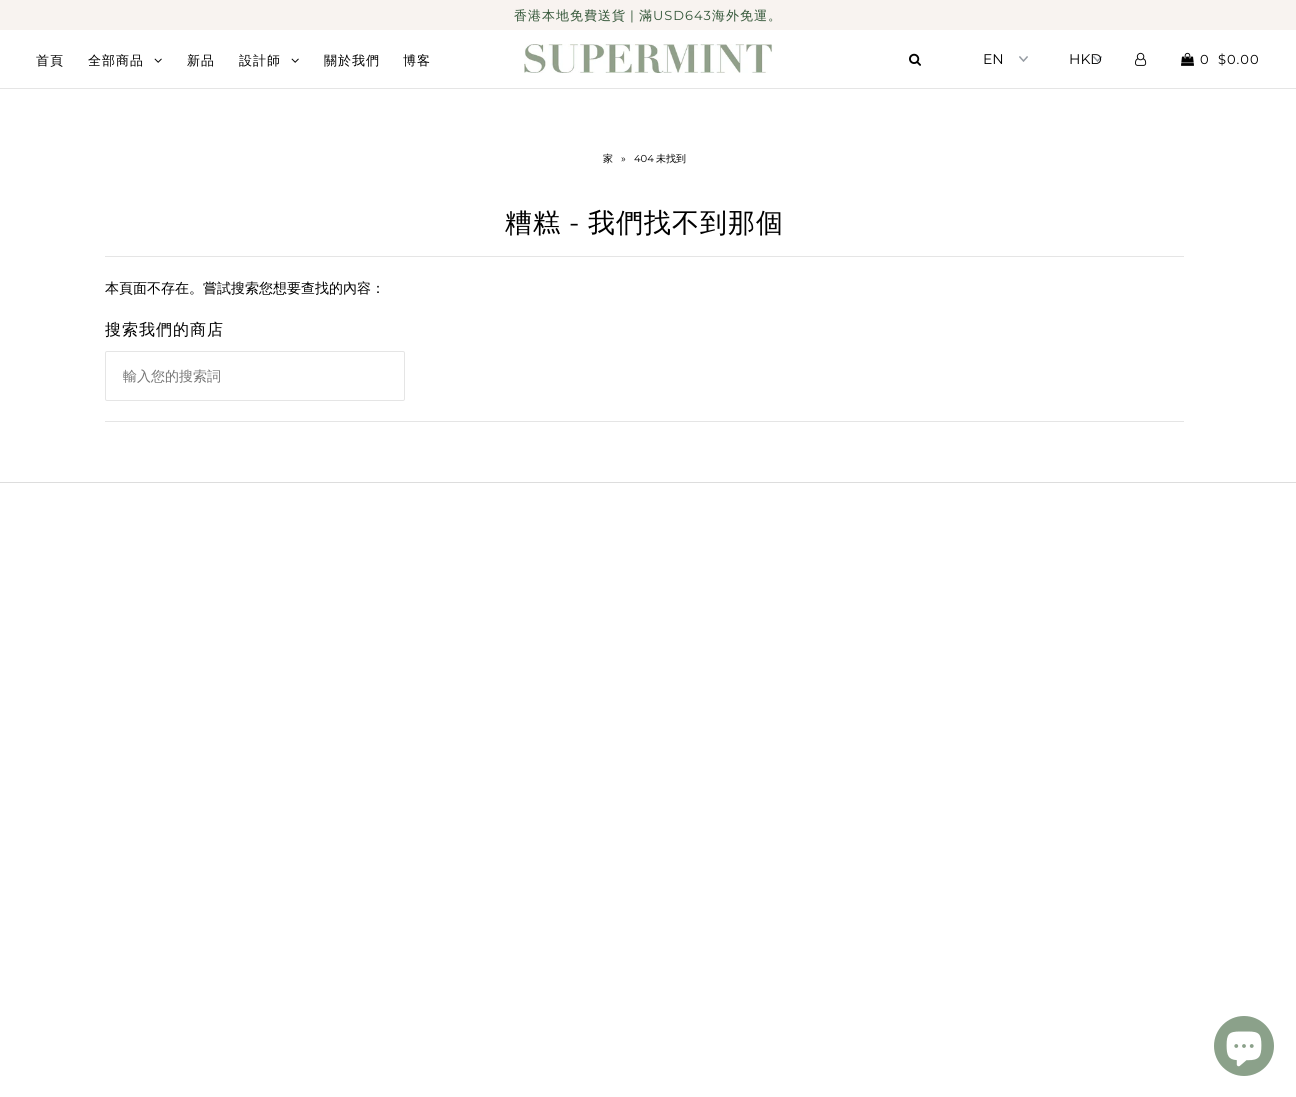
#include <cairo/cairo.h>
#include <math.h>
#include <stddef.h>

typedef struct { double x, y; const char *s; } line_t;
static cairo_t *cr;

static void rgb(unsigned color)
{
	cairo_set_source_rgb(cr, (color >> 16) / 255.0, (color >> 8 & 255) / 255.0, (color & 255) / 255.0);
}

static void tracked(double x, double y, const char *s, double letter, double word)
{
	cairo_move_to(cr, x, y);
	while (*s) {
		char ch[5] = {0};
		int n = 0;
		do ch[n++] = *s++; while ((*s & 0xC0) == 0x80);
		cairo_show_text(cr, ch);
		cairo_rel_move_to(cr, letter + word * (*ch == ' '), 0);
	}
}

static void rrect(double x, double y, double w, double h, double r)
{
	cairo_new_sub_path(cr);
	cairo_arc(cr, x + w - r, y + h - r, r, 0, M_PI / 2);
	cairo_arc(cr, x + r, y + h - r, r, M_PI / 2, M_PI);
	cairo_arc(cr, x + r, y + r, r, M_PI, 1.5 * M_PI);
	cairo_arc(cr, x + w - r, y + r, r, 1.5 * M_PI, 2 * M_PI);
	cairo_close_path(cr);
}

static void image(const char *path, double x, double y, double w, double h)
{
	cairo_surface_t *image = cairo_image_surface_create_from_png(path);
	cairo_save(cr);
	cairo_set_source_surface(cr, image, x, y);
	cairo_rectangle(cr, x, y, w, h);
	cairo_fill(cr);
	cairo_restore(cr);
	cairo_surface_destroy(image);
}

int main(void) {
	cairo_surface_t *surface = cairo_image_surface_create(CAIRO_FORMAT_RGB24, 1296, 1097);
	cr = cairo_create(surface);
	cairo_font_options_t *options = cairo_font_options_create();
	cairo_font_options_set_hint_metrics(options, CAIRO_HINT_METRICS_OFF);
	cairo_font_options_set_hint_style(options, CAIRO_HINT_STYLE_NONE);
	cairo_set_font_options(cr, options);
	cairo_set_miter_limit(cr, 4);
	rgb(0xffffff);
	cairo_paint(cr);
	rgb(0xe5e5e5);
	cairo_rectangle(cr, 0, 88, 1296, 1);
	cairo_fill(cr);
	rgb(0xf8f3f0);
	cairo_rectangle(cr, 0, 0, 1296, 30);
	cairo_fill(cr);
	image("img/1.png", 154, 58, 8, 5);
	image("img/1.png", 291, 58, 8, 5);
	image("img/2.png", 524, 44, 249, 29);
	image("img/3.png", 909, 53, 12, 13);
	image("img/4.png", 1019, 56, 9, 6);
	image("img/4.png", 1093, 56, 9, 6);
	image("img/5.png", 1135, 52, 12, 14);
	image("img/6.png", 1181, 52, 13, 14);
	rgb(0xe5e5e5);
	cairo_rectangle(cr, 105, 256, 1079, 1);
	cairo_fill(cr);
	cairo_rectangle(cr, 105, 421, 1079, 1);
	cairo_fill(cr);
	rrect(105.5, 351.5, 299, 49, 1.5);
	cairo_set_line_width(cr, 1);
	cairo_stroke(cr);
	rgb(0xdddddd);
	cairo_rectangle(cr, 0, 482, 1296, 1);
	cairo_fill(cr);
	rgb(0x8ba18a);
	cairo_arc(cr, 1244, 1046, 30, 0, 2 * M_PI);
	cairo_fill(cr);
	image("img/7.png", 1226, 1031, 36, 36);
	cairo_select_font_face(cr, "WenQuanYi Zen Hei Medium", CAIRO_FONT_SLANT_NORMAL, CAIRO_FONT_WEIGHT_NORMAL);
	cairo_set_font_size(cr, 13);
	rgb(0x335638);
	tracked(514, 20, "香港本地免費送貨", 1, 0);
	cairo_select_font_face(cr, "Montserrat", CAIRO_FONT_SLANT_NORMAL, CAIRO_FONT_WEIGHT_NORMAL);
	tracked(630, 20, "|", 1, 0);
	cairo_select_font_face(cr, "WenQuanYi Zen Hei Medium", CAIRO_FONT_SLANT_NORMAL, CAIRO_FONT_WEIGHT_NORMAL);
	tracked(639, 20, "滿", 1, 0);
	cairo_select_font_face(cr, "Montserrat", CAIRO_FONT_SLANT_NORMAL, CAIRO_FONT_WEIGHT_NORMAL);
	tracked(653, 20, "USD643", 1, 0);
	cairo_select_font_face(cr, "WenQuanYi Zen Hei Medium", CAIRO_FONT_SLANT_NORMAL, CAIRO_FONT_WEIGHT_NORMAL);
	tracked(712, 20, "海外免運。", 1, 0);
	rgb(0x000000);
	{
		static const line_t items[] = {
			{36, 65, "首頁"},
			{88, 65, "全部商品"},
			{187, 65, "新品"},
			{239, 65, "設計師"},
			{324, 65, "關於我們"},
			{403, 65, "博客"},
		};
		for (size_t i = 0; i < sizeof items / sizeof *items; i++) {
			tracked(items[i].x, items[i].y, items[i].s, 1, 0);
		}
	}
	cairo_select_font_face(cr, "Montserrat", CAIRO_FONT_SLANT_NORMAL, CAIRO_FONT_WEIGHT_NORMAL);
	cairo_set_font_size(cr, 14);
	cairo_move_to(cr, 983, 64);
	cairo_show_text(cr, "EN");
	cairo_move_to(cr, 1069, 64);
	cairo_show_text(cr, "HKD");
	cairo_set_font_size(cr, 13);
	tracked(1200, 64, "0", 1, 0);
	tracked(1218, 64, "$0.00", 1, 0);
	cairo_select_font_face(cr, "WenQuanYi Zen Hei Medium", CAIRO_FONT_SLANT_NORMAL, CAIRO_FONT_WEIGHT_NORMAL);
	cairo_set_font_size(cr, 10);
	cairo_move_to(cr, 603, 162);
	cairo_show_text(cr, "家");
	cairo_select_font_face(cr, "Montserrat", CAIRO_FONT_SLANT_NORMAL, CAIRO_FONT_WEIGHT_NORMAL);
	cairo_move_to(cr, 621, 162);
	cairo_show_text(cr, "»");
	cairo_move_to(cr, 634, 162);
	cairo_show_text(cr, "404");
	cairo_select_font_face(cr, "WenQuanYi Zen Hei Medium", CAIRO_FONT_SLANT_NORMAL, CAIRO_FONT_WEIGHT_NORMAL);
	cairo_move_to(cr, 656, 162);
	cairo_show_text(cr, "未找到");
	cairo_set_font_size(cr, 27);
	tracked(505, 232, "糟糕", 1, 0);
	cairo_select_font_face(cr, "Montserrat", CAIRO_FONT_SLANT_NORMAL, CAIRO_FONT_WEIGHT_NORMAL);
	tracked(569, 232, "-", 1, 0);
	cairo_select_font_face(cr, "WenQuanYi Zen Hei Medium", CAIRO_FONT_SLANT_NORMAL, CAIRO_FONT_WEIGHT_NORMAL);
	tracked(588, 232, "我們找不到那個", 1, 0);
	cairo_set_font_size(cr, 14);
	cairo_move_to(cr, 105, 293);
	cairo_show_text(cr, "本頁面不存在。嘗試搜索您想要查找的內容：");
	cairo_set_font_size(cr, 16);
	tracked(105, 335, "搜索我們的商店", 1, 0);
	cairo_set_font_size(cr, 14);
	rgb(0x757575);
	cairo_move_to(cr, 123, 381);
	cairo_show_text(cr, "輸入您的搜索詞");
	cairo_surface_write_to_png(surface, "page.png");
	cairo_font_options_destroy(options);
	cairo_destroy(cr);
	cairo_surface_destroy(surface);
	return 0;
}
